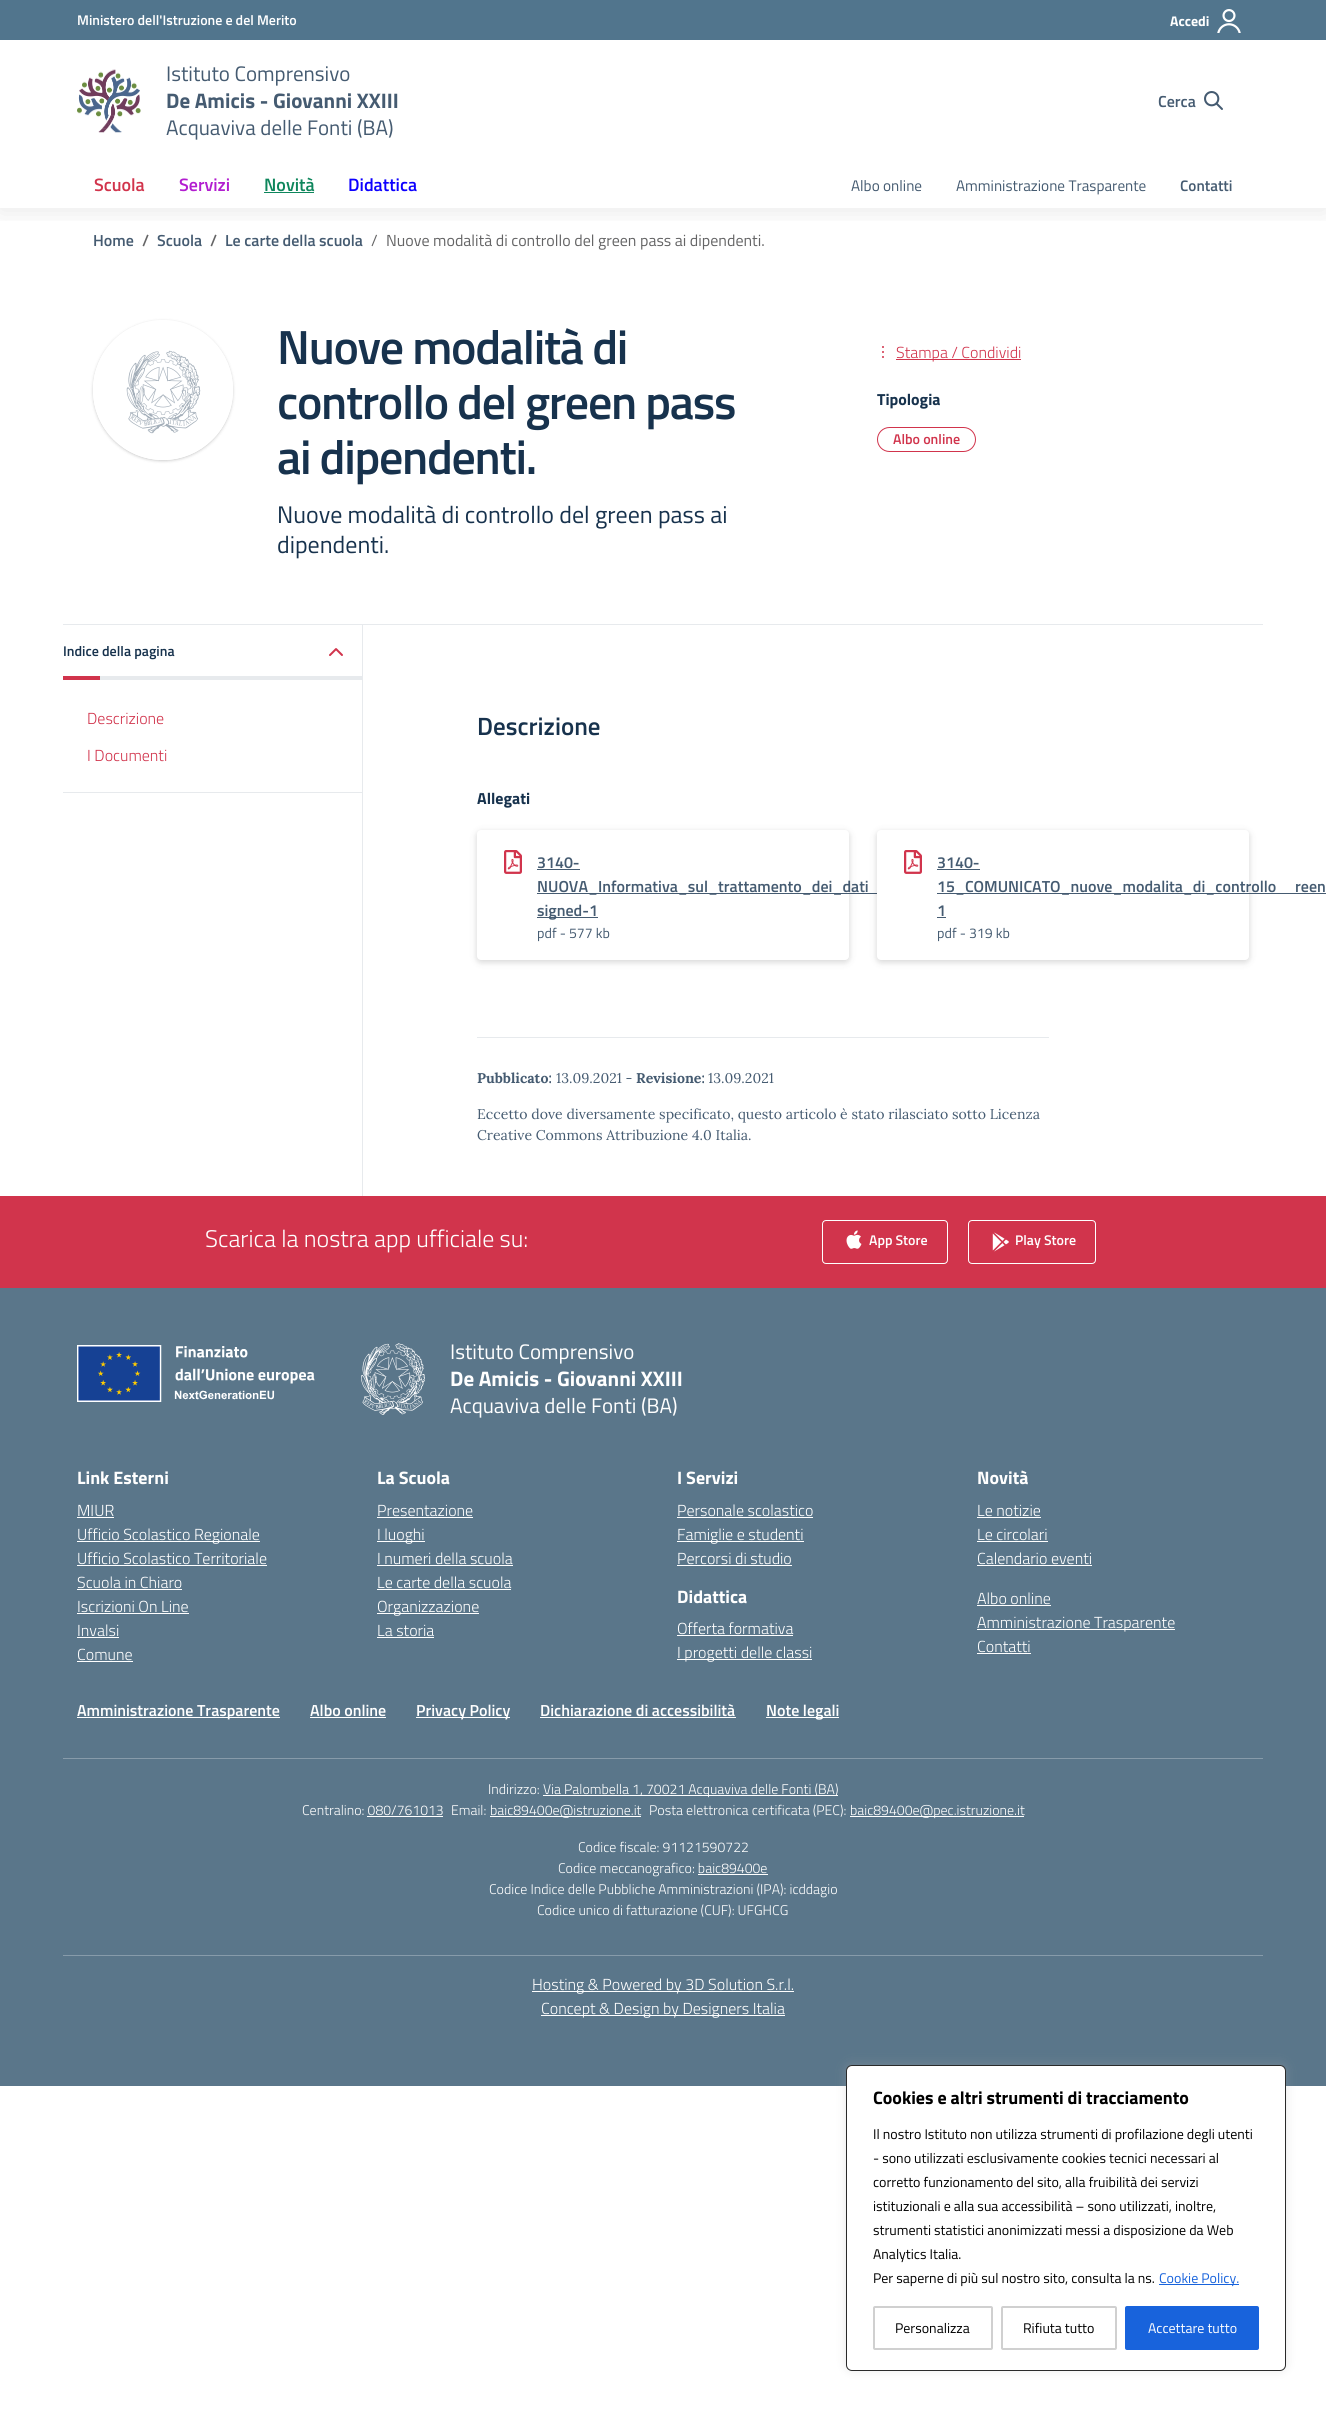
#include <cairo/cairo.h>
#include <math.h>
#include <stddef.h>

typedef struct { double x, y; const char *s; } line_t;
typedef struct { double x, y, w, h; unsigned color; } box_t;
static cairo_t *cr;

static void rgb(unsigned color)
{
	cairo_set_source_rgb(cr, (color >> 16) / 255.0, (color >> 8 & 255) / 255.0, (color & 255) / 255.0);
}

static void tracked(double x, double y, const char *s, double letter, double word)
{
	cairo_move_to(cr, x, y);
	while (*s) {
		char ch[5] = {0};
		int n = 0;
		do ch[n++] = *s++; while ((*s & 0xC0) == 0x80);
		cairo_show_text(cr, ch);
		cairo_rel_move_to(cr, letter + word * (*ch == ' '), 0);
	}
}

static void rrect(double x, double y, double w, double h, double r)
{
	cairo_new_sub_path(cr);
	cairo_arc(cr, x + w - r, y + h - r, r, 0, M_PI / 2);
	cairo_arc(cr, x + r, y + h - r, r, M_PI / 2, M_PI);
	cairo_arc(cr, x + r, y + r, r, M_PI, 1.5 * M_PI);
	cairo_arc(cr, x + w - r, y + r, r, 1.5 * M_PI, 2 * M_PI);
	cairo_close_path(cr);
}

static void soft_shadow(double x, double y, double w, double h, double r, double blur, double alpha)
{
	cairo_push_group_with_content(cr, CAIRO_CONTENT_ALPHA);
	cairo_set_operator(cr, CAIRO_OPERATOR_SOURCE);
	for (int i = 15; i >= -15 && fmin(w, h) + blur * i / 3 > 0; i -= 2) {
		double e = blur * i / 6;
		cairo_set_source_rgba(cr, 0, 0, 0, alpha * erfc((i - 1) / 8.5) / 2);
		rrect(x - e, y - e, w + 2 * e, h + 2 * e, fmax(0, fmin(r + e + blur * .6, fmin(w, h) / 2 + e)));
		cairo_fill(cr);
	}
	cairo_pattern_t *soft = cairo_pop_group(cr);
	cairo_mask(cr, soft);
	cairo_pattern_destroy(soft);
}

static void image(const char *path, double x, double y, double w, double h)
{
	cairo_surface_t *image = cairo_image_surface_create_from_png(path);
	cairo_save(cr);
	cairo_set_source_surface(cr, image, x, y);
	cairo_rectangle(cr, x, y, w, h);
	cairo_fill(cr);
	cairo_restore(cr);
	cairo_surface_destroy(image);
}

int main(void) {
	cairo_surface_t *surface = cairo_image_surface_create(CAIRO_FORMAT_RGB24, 1326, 2411);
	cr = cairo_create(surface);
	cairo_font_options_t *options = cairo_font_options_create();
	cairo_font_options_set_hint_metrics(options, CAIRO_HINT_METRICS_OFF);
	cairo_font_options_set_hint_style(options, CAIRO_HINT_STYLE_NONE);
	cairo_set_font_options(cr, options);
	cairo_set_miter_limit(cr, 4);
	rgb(0xffffff);
	cairo_paint(cr);
	cairo_save(cr);
	cairo_rectangle(cr, 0, 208, 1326, 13);
	cairo_clip(cr);
	rgb(0x000000);
	soft_shadow(0, 2, 1326, 208, 0, 12.5, 0.1);
	cairo_restore(cr);
	rgb(0x51758d);
	cairo_rectangle(cr, 0, 0, 1326, 40);
	cairo_fill(cr);
	image("img/1.png", 1217, 9, 24, 24);
	image("img/2.png", 77, 69, 64, 64);
	image("img/3.png", 1204, 91, 19, 19);
	rgb(0x0e865c);
	cairo_rectangle(cr, 264, 192, 50, 1);
	cairo_fill(cr);
	cairo_save(cr);
	cairo_set_fill_rule(cr, CAIRO_FILL_RULE_EVEN_ODD);
	cairo_new_path(cr);
	cairo_move_to(cr, 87, 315);
	cairo_line_to(cr, 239, 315);
	cairo_line_to(cr, 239, 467);
	cairo_line_to(cr, 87, 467);
	cairo_close_path(cr);
	cairo_move_to(cr, 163, 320);
	cairo_curve_to(cr, 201.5, 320, 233, 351.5, 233, 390);
	cairo_curve_to(cr, 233, 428.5, 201.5, 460, 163, 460);
	cairo_curve_to(cr, 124.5, 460, 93, 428.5, 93, 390);
	cairo_curve_to(cr, 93, 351.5, 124.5, 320, 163, 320);
	cairo_close_path(cr);
	cairo_clip(cr);
	rgb(0x000000);
	soft_shadow(93, 321, 140, 140, 70, 1.5, 0.2);
	cairo_restore(cr);
	image("img/4.png", 93, 327, 140, 133);
	image("img/5.png", 882, 346, 2, 12);
	rgb(0xd1344c);
	cairo_rectangle(cr, 896, 359, 125, 1);
	cairo_fill(cr);
	rrect(877.5, 427.5, 98, 24, 12);
	cairo_set_line_width(cr, 1);
	cairo_stroke(cr);
	rgb(0xe7eaed);
	cairo_rectangle(cr, 63, 624, 1200, 1);
	cairo_fill(cr);
	image("img/6.png", 329, 648, 14, 8);
	{
		static const box_t items[] = {
			{63, 676, 37, 4, 0xd1344c},
			{100, 676, 263, 4, 0xe7eaed},
			{63, 792, 300, 1, 0xe7eaed},
			{362, 625, 1, 571, 0xe7eaed},
		};
		for (size_t i = 0; i < sizeof items / sizeof *items; i++) {
			rgb(items[i].color);
			cairo_rectangle(cr, items[i].x, items[i].y, items[i].w, items[i].h);
			cairo_fill(cr);
		}
	}
	rgb(0x000000);
	soft_shadow(477, 832, 372, 130, 4, 3.5, 0.17);
	rgb(0xffffff);
	rrect(477, 830, 372, 130, 4);
	cairo_fill(cr);
	image("img/7.png", 504, 850, 18, 24);
	{
		static const box_t items[] = {
			{537, 869, 43, 1, 0x455b71},
			{537, 893, 340, 1, 0x455b71},
			{537, 917, 61, 1, 0x455b71},
		};
		for (size_t i = 0; i < sizeof items / sizeof *items; i++) {
			rgb(items[i].color);
			cairo_rectangle(cr, items[i].x, items[i].y, items[i].w, items[i].h);
			cairo_fill(cr);
		}
	}
	rgb(0x000000);
	soft_shadow(877, 832, 372, 130, 4, 3.5, 0.17);
	rgb(0xffffff);
	rrect(877, 830, 372, 130, 4);
	cairo_fill(cr);
	image("img/7.png", 904, 850, 18, 24);
	{
		static const box_t items[] = {
			{937, 869, 43, 1, 0x455b71},
			{937, 893, 389, 1, 0x455b71},
			{937, 917, 9, 1, 0x455b71},
			{477, 1037, 572, 1, 0xe7eaed},
			{0, 1196, 1326, 92, 0xd1344c},
		};
		for (size_t i = 0; i < sizeof items / sizeof *items; i++) {
			rgb(items[i].color);
			cairo_rectangle(cr, items[i].x, items[i].y, items[i].w, items[i].h);
			cairo_fill(cr);
		}
	}
	rrect(822.5, 1220.5, 125, 43, 3.5);
	rgb(0xffffff);
	cairo_stroke(cr);
	image("img/8.png", 846, 1230, 16, 19);
	rrect(968.5, 1220.5, 127, 43, 3.5);
	cairo_stroke(cr);
	image("img/9.png", 992, 1232, 17, 20);
	rgb(0x5a768a);
	cairo_rectangle(cr, 0, 1288, 1326, 798);
	cairo_fill(cr);
	image("img/10.png", 77, 1345, 238, 57);
	image("img/11.png", 361, 1343, 64, 72);
	{
		static const box_t items[] = {
			{77, 1517, 37, 1, 0xffffff},
			{77, 1541, 183, 1, 0xffffff},
			{77, 1565, 190, 1, 0xffffff},
			{77, 1589, 105, 1, 0xffffff},
			{77, 1613, 112, 1, 0xffffff},
			{77, 1637, 42, 1, 0xffffff},
			{77, 1661, 56, 1, 0xffffff},
			{377, 1517, 96, 1, 0xffffff},
			{377, 1541, 48, 1, 0xffffff},
			{377, 1565, 136, 1, 0xffffff},
			{377, 1589, 134, 1, 0xffffff},
			{377, 1613, 102, 1, 0xffffff},
			{377, 1637, 57, 1, 0xffffff},
			{677, 1517, 136, 1, 0xffffff},
			{677, 1541, 127, 1, 0xffffff},
			{677, 1565, 115, 1, 0xffffff},
			{677, 1635, 116, 1, 0xffffff},
			{677, 1659, 135, 1, 0xffffff},
			{977, 1517, 64, 1, 0xffffff},
			{977, 1541, 71, 1, 0xffffff},
			{977, 1565, 115, 1, 0xffffff},
			{977, 1605, 74, 1, 0xffffff},
			{977, 1629, 198, 1, 0xffffff},
			{977, 1653, 54, 1, 0xffffff},
			{77, 1717, 203, 1, 0xffffff},
			{310, 1717, 76, 1, 0xffffff},
			{416, 1717, 94, 1, 0xffffff},
			{540, 1717, 196, 1, 0xffffff},
			{766, 1717, 73, 1, 0xffffff},
			{63, 1758, 1200, 1, 0x879baa},
			{543, 1795, 295, 1, 0xffffff},
			{367, 1816, 76, 1, 0xffffff},
			{490, 1816, 151, 1, 0xffffff},
			{850, 1816, 174, 1, 0xffffff},
			{698, 1874, 70, 1, 0xffffff},
			{63, 1955, 1200, 1, 0x879baa},
			{532, 1991, 262, 1, 0xffffff},
			{541, 2015, 244, 1, 0xffffff},
		};
		for (size_t i = 0; i < sizeof items / sizeof *items; i++) {
			rgb(items[i].color);
			cairo_rectangle(cr, items[i].x, items[i].y, items[i].w, items[i].h);
			cairo_fill(cr);
		}
	}
	rgb(0xacabab);
	soft_shadow(846, 2064, 440, 306, 6, 5, 0.3);
	rgb(0xffffff);
	rrect(846.5, 2065.5, 439, 305, 5.5);
	cairo_fill_preserve(cr);
	rgb(0x2a2a2a);
	cairo_stroke(cr);
	rgb(0x1863dc);
	cairo_rectangle(cr, 1159, 2284, 80, 1);
	cairo_fill(cr);
	rrect(874, 2307, 118, 42, 1);
	rgb(0xd0d0d0);
	cairo_set_line_width(cr, 2);
	cairo_stroke(cr);
	rrect(1002, 2307, 114, 42, 1);
	cairo_stroke(cr);
	rgb(0x1863dc);
	rrect(1126, 2307, 132, 42, 1);
	cairo_fill_preserve(cr);
	cairo_stroke(cr);
	cairo_select_font_face(cr, "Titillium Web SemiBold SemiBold", CAIRO_FONT_SLANT_NORMAL, CAIRO_FONT_WEIGHT_NORMAL);
	cairo_set_font_size(cr, 14);
	rgb(0xffffff);
	cairo_move_to(cr, 77, 25);
	cairo_show_text(cr, "Ministero dell'Istruzione e del Merito");
	cairo_select_font_face(cr, "Titillium Web", CAIRO_FONT_SLANT_NORMAL, CAIRO_FONT_WEIGHT_BOLD);
	cairo_move_to(cr, 1170, 26);
	cairo_show_text(cr, "Accedi");
	cairo_select_font_face(cr, "Titillium Web", CAIRO_FONT_SLANT_NORMAL, CAIRO_FONT_WEIGHT_NORMAL);
	cairo_set_font_size(cr, 21);
	rgb(0x455b71);
	cairo_move_to(cr, 166, 81);
	cairo_show_text(cr, "Istituto Comprensivo");
	cairo_select_font_face(cr, "Titillium Web", CAIRO_FONT_SLANT_NORMAL, CAIRO_FONT_WEIGHT_BOLD);
	cairo_move_to(cr, 166, 108);
	cairo_show_text(cr, "De Amicis - Giovanni XXIII");
	cairo_select_font_face(cr, "Titillium Web", CAIRO_FONT_SLANT_NORMAL, CAIRO_FONT_WEIGHT_NORMAL);
	cairo_move_to(cr, 166, 135);
	cairo_show_text(cr, "Acquaviva delle Fonti (BA)");
	cairo_select_font_face(cr, "Titillium Web SemiBold SemiBold", CAIRO_FONT_SLANT_NORMAL, CAIRO_FONT_WEIGHT_NORMAL);
	cairo_set_font_size(cr, 16);
	cairo_move_to(cr, 1158, 107);
	cairo_show_text(cr, "Cerca");
	cairo_set_font_size(cr, 18);
	rgb(0xd1344c);
	cairo_move_to(cr, 94, 191);
	cairo_show_text(cr, "Scuola");
	rgb(0xb21dd0);
	cairo_move_to(cr, 179, 191);
	cairo_show_text(cr, "Servizi");
	rgb(0x0e865c);
	cairo_move_to(cr, 264, 191);
	cairo_show_text(cr, "Novità");
	rgb(0x0d00ff);
	cairo_move_to(cr, 348, 191);
	cairo_show_text(cr, "Didattica");
	cairo_select_font_face(cr, "Titillium Web", CAIRO_FONT_SLANT_NORMAL, CAIRO_FONT_WEIGHT_NORMAL);
	cairo_set_font_size(cr, 15.25);
	rgb(0x455b71);
	cairo_move_to(cr, 851, 191);
	cairo_show_text(cr, "Albo online");
	cairo_move_to(cr, 956, 191);
	cairo_show_text(cr, "Amministrazione Trasparente");
	cairo_select_font_face(cr, "Titillium Web SemiBold SemiBold", CAIRO_FONT_SLANT_NORMAL, CAIRO_FONT_WEIGHT_NORMAL);
	cairo_move_to(cr, 1180, 191);
	cairo_show_text(cr, "Contatti");
	cairo_set_font_size(cr, 16);
	cairo_move_to(cr, 93, 246);
	cairo_show_text(cr, "Home");
	rgb(0x656566);
	cairo_move_to(cr, 142, 246);
	cairo_show_text(cr, "/");
	rgb(0x455b71);
	cairo_move_to(cr, 157, 246);
	cairo_show_text(cr, "Scuola");
	rgb(0x656566);
	cairo_move_to(cr, 210, 246);
	cairo_show_text(cr, "/");
	rgb(0x455b71);
	cairo_move_to(cr, 225, 246);
	cairo_show_text(cr, "Le carte della scuola");
	cairo_select_font_face(cr, "Titillium Web", CAIRO_FONT_SLANT_NORMAL, CAIRO_FONT_WEIGHT_NORMAL);
	rgb(0x656566);
	cairo_move_to(cr, 371, 246);
	cairo_show_text(cr, "/");
	cairo_move_to(cr, 386, 246);
	cairo_show_text(cr, "Nuove modalità di controllo del green pass ai dipendenti.");
	cairo_select_font_face(cr, "Titillium Web SemiBold SemiBold", CAIRO_FONT_SLANT_NORMAL, CAIRO_FONT_WEIGHT_NORMAL);
	cairo_set_font_size(cr, 48);
	rgb(0x17324d);
	{
		static const line_t items[] = {
			{277, 364, "Nuove modalità di"},
			{277, 419, "controllo del green pass"},
			{277, 474, "ai dipendenti."},
		};
		for (size_t i = 0; i < sizeof items / sizeof *items; i++) {
			tracked(items[i].x, items[i].y, items[i].s, -1.3, 0);
		}
	}
	cairo_select_font_face(cr, "Titillium Web", CAIRO_FONT_SLANT_NORMAL, CAIRO_FONT_WEIGHT_NORMAL);
	cairo_set_font_size(cr, 24);
	cairo_move_to(cr, 277, 523);
	cairo_show_text(cr, "Nuove modalità di controllo del green pass ai");
	cairo_move_to(cr, 277, 553);
	cairo_show_text(cr, "dipendenti.");
	cairo_select_font_face(cr, "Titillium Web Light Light", CAIRO_FONT_SLANT_NORMAL, CAIRO_FONT_WEIGHT_NORMAL);
	cairo_set_font_size(cr, 16);
	rgb(0xd1344c);
	cairo_move_to(cr, 896, 358);
	cairo_show_text(cr, "Stampa / Condividi");
	cairo_select_font_face(cr, "Titillium Web", CAIRO_FONT_SLANT_NORMAL, CAIRO_FONT_WEIGHT_BOLD);
	rgb(0x17324d);
	cairo_move_to(cr, 877, 405);
	cairo_show_text(cr, "Tipologia");
	cairo_select_font_face(cr, "Titillium Web SemiBold SemiBold", CAIRO_FONT_SLANT_NORMAL, CAIRO_FONT_WEIGHT_NORMAL);
	cairo_set_font_size(cr, 14.1);
	rgb(0xd1344c);
	cairo_move_to(cr, 893, 444);
	cairo_show_text(cr, "Albo online");
	rgb(0x17324d);
	cairo_move_to(cr, 63, 656);
	cairo_show_text(cr, "Indice della pagina");
	cairo_select_font_face(cr, "Titillium Web Light Light", CAIRO_FONT_SLANT_NORMAL, CAIRO_FONT_WEIGHT_NORMAL);
	cairo_set_font_size(cr, 16);
	rgb(0xd1344c);
	cairo_move_to(cr, 87, 724);
	cairo_show_text(cr, "Descrizione");
	cairo_move_to(cr, 87, 761);
	cairo_show_text(cr, "I Documenti");
	cairo_select_font_face(cr, "Titillium Web SemiBold SemiBold", CAIRO_FONT_SLANT_NORMAL, CAIRO_FONT_WEIGHT_NORMAL);
	cairo_set_font_size(cr, 25);
	rgb(0x17324d);
	cairo_move_to(cr, 477, 735);
	cairo_show_text(cr, "Descrizione");
	cairo_select_font_face(cr, "Titillium Web", CAIRO_FONT_SLANT_NORMAL, CAIRO_FONT_WEIGHT_BOLD);
	cairo_set_font_size(cr, 16);
	cairo_move_to(cr, 477, 804);
	cairo_show_text(cr, "Allegati");
	cairo_select_font_face(cr, "Titillium Web SemiBold SemiBold", CAIRO_FONT_SLANT_NORMAL, CAIRO_FONT_WEIGHT_NORMAL);
	rgb(0x455b71);
	{
		static const line_t items[] = {
			{537, 868, "3140-"},
			{537, 892, "NUOVA_Informativa_sul_trattamento_dei_dati"},
			{537, 916, "signed-1"},
		};
		for (size_t i = 0; i < sizeof items / sizeof *items; i++) {
			cairo_move_to(cr, items[i].x, items[i].y);
			cairo_show_text(cr, items[i].s);
		}
	}
	cairo_select_font_face(cr, "Titillium Web", CAIRO_FONT_SLANT_NORMAL, CAIRO_FONT_WEIGHT_NORMAL);
	cairo_set_font_size(cr, 14.1);
	cairo_move_to(cr, 537, 938);
	cairo_show_text(cr, "pdf - 577 kb");
	cairo_select_font_face(cr, "Titillium Web SemiBold SemiBold", CAIRO_FONT_SLANT_NORMAL, CAIRO_FONT_WEIGHT_NORMAL);
	cairo_set_font_size(cr, 16);
	{
		static const line_t items[] = {
			{937, 868, "3140-"},
			{937, 892, "15_COMUNICATO_nuove_modalita_di_controllo"},
			{1295, 892, "reen"},
			{937, 916, "1"},
		};
		for (size_t i = 0; i < sizeof items / sizeof *items; i++) {
			cairo_move_to(cr, items[i].x, items[i].y);
			cairo_show_text(cr, items[i].s);
		}
	}
	cairo_select_font_face(cr, "Titillium Web", CAIRO_FONT_SLANT_NORMAL, CAIRO_FONT_WEIGHT_NORMAL);
	cairo_set_font_size(cr, 14.1);
	cairo_move_to(cr, 937, 938);
	cairo_show_text(cr, "pdf - 319 kb");
	cairo_select_font_face(cr, "Lora", CAIRO_FONT_SLANT_NORMAL, CAIRO_FONT_WEIGHT_BOLD);
	cairo_move_to(cr, 477, 1083);
	cairo_show_text(cr, "Pubblicato:");
	cairo_select_font_face(cr, "Lora", CAIRO_FONT_SLANT_NORMAL, CAIRO_FONT_WEIGHT_NORMAL);
	cairo_move_to(cr, 556, 1083);
	cairo_show_text(cr, "13.09.2021 -");
	cairo_select_font_face(cr, "Lora", CAIRO_FONT_SLANT_NORMAL, CAIRO_FONT_WEIGHT_BOLD);
	cairo_move_to(cr, 636, 1083);
	cairo_show_text(cr, "Revisione:");
	cairo_select_font_face(cr, "Lora", CAIRO_FONT_SLANT_NORMAL, CAIRO_FONT_WEIGHT_NORMAL);
	{
		static const line_t items[] = {
			{708, 1083, "13.09.2021"},
			{477, 1119, "Eccetto dove diversamente specificato, questo articolo è stato rilasciato sotto Licenza"},
			{477, 1140, "Creative Commons Attribuzione 4.0 Italia."},
		};
		for (size_t i = 0; i < sizeof items / sizeof *items; i++) {
			cairo_move_to(cr, items[i].x, items[i].y);
			cairo_show_text(cr, items[i].s);
		}
	}
	cairo_select_font_face(cr, "Titillium Web Light Light", CAIRO_FONT_SLANT_NORMAL, CAIRO_FONT_WEIGHT_NORMAL);
	cairo_set_font_size(cr, 24);
	rgb(0xffffff);
	cairo_move_to(cr, 205, 1247);
	cairo_show_text(cr, "Scarica la nostra app ufficiale su:");
	cairo_select_font_face(cr, "Titillium Web SemiBold SemiBold", CAIRO_FONT_SLANT_NORMAL, CAIRO_FONT_WEIGHT_NORMAL);
	cairo_set_font_size(cr, 14);
	cairo_move_to(cr, 869, 1245);
	cairo_show_text(cr, "App Store");
	cairo_move_to(cr, 1015, 1245);
	cairo_show_text(cr, "Play Store");
	cairo_select_font_face(cr, "Titillium Web", CAIRO_FONT_SLANT_NORMAL, CAIRO_FONT_WEIGHT_NORMAL);
	cairo_set_font_size(cr, 21);
	cairo_move_to(cr, 450, 1359);
	cairo_show_text(cr, "Istituto Comprensivo");
	cairo_select_font_face(cr, "Titillium Web", CAIRO_FONT_SLANT_NORMAL, CAIRO_FONT_WEIGHT_BOLD);
	cairo_move_to(cr, 450, 1386);
	cairo_show_text(cr, "De Amicis - Giovanni XXIII");
	cairo_select_font_face(cr, "Titillium Web", CAIRO_FONT_SLANT_NORMAL, CAIRO_FONT_WEIGHT_NORMAL);
	cairo_move_to(cr, 450, 1413);
	cairo_show_text(cr, "Acquaviva delle Fonti (BA)");
	cairo_select_font_face(cr, "Titillium Web", CAIRO_FONT_SLANT_NORMAL, CAIRO_FONT_WEIGHT_BOLD);
	cairo_set_font_size(cr, 18);
	cairo_move_to(cr, 77, 1484);
	cairo_show_text(cr, "Link Esterni");
	cairo_select_font_face(cr, "Titillium Web Light Light", CAIRO_FONT_SLANT_NORMAL, CAIRO_FONT_WEIGHT_NORMAL);
	cairo_set_font_size(cr, 16);
	{
		static const line_t items[] = {
			{77, 1516, "MIUR"},
			{77, 1540, "Ufficio Scolastico Regionale"},
			{77, 1564, "Ufficio Scolastico Territoriale"},
			{77, 1588, "Scuola in Chiaro"},
			{77, 1612, "Iscrizioni On Line"},
			{77, 1636, "Invalsi"},
			{77, 1660, "Comune"},
		};
		for (size_t i = 0; i < sizeof items / sizeof *items; i++) {
			cairo_move_to(cr, items[i].x, items[i].y);
			cairo_show_text(cr, items[i].s);
		}
	}
	cairo_select_font_face(cr, "Titillium Web", CAIRO_FONT_SLANT_NORMAL, CAIRO_FONT_WEIGHT_BOLD);
	cairo_set_font_size(cr, 18);
	cairo_move_to(cr, 377, 1484);
	cairo_show_text(cr, "La Scuola");
	cairo_select_font_face(cr, "Titillium Web Light Light", CAIRO_FONT_SLANT_NORMAL, CAIRO_FONT_WEIGHT_NORMAL);
	cairo_set_font_size(cr, 16);
	{
		static const line_t items[] = {
			{377, 1516, "Presentazione"},
			{377, 1540, "I luoghi"},
			{377, 1564, "I numeri della scuola"},
			{377, 1588, "Le carte della scuola"},
			{377, 1612, "Organizzazione"},
			{377, 1636, "La storia"},
		};
		for (size_t i = 0; i < sizeof items / sizeof *items; i++) {
			cairo_move_to(cr, items[i].x, items[i].y);
			cairo_show_text(cr, items[i].s);
		}
	}
	cairo_select_font_face(cr, "Titillium Web", CAIRO_FONT_SLANT_NORMAL, CAIRO_FONT_WEIGHT_BOLD);
	cairo_set_font_size(cr, 18);
	cairo_move_to(cr, 677, 1484);
	cairo_show_text(cr, "I Servizi");
	cairo_select_font_face(cr, "Titillium Web Light Light", CAIRO_FONT_SLANT_NORMAL, CAIRO_FONT_WEIGHT_NORMAL);
	cairo_set_font_size(cr, 16);
	{
		static const line_t items[] = {
			{677, 1516, "Personale scolastico"},
			{677, 1540, "Famiglie e studenti"},
			{677, 1564, "Percorsi di studio"},
		};
		for (size_t i = 0; i < sizeof items / sizeof *items; i++) {
			cairo_move_to(cr, items[i].x, items[i].y);
			cairo_show_text(cr, items[i].s);
		}
	}
	cairo_select_font_face(cr, "Titillium Web", CAIRO_FONT_SLANT_NORMAL, CAIRO_FONT_WEIGHT_BOLD);
	cairo_set_font_size(cr, 18);
	cairo_move_to(cr, 677, 1603);
	cairo_show_text(cr, "Didattica");
	cairo_select_font_face(cr, "Titillium Web Light Light", CAIRO_FONT_SLANT_NORMAL, CAIRO_FONT_WEIGHT_NORMAL);
	cairo_set_font_size(cr, 16);
	cairo_move_to(cr, 677, 1634);
	cairo_show_text(cr, "Offerta formativa");
	cairo_move_to(cr, 677, 1658);
	cairo_show_text(cr, "I progetti delle classi");
	cairo_select_font_face(cr, "Titillium Web", CAIRO_FONT_SLANT_NORMAL, CAIRO_FONT_WEIGHT_BOLD);
	cairo_set_font_size(cr, 18);
	cairo_move_to(cr, 977, 1484);
	cairo_show_text(cr, "Novità");
	cairo_select_font_face(cr, "Titillium Web Light Light", CAIRO_FONT_SLANT_NORMAL, CAIRO_FONT_WEIGHT_NORMAL);
	cairo_set_font_size(cr, 16);
	{
		static const line_t items[] = {
			{977, 1516, "Le notizie"},
			{977, 1540, "Le circolari"},
			{977, 1564, "Calendario eventi"},
			{977, 1604, "Albo online"},
			{977, 1628, "Amministrazione Trasparente"},
			{977, 1652, "Contatti"},
		};
		for (size_t i = 0; i < sizeof items / sizeof *items; i++) {
			cairo_move_to(cr, items[i].x, items[i].y);
			cairo_show_text(cr, items[i].s);
		}
	}
	cairo_select_font_face(cr, "Titillium Web SemiBold SemiBold", CAIRO_FONT_SLANT_NORMAL, CAIRO_FONT_WEIGHT_NORMAL);
	{
		static const line_t items[] = {
			{77, 1716, "Amministrazione Trasparente"},
			{310, 1716, "Albo online"},
			{416, 1716, "Privacy Policy"},
			{540, 1716, "Dichiarazione di accessibilità"},
			{766, 1716, "Note legali"},
		};
		for (size_t i = 0; i < sizeof items / sizeof *items; i++) {
			cairo_move_to(cr, items[i].x, items[i].y);
			cairo_show_text(cr, items[i].s);
		}
	}
	cairo_select_font_face(cr, "Titillium Web Light Light", CAIRO_FONT_SLANT_NORMAL, CAIRO_FONT_WEIGHT_NORMAL);
	cairo_set_font_size(cr, 14);
	{
		static const line_t items[] = {
			{488, 1794, "Indirizzo:"},
			{543, 1794, "Via Palombella 1, 70021 Acquaviva delle Fonti (BA)"},
			{302, 1815, "Centralino: 080/761013"},
			{451, 1815, "Email:"},
			{490, 1815, "baic89400e@istruzione.it"},
			{649, 1815, "Posta elettronica certificata (PEC):"},
			{850, 1815, "baic89400e@pec.istruzione.it"},
			{578, 1852, "Codice fiscale: 91121590722"},
			{558, 1873, "Codice meccanografico: baic89400e"},
			{489, 1894, "Codice Indice delle Pubbliche Amministrazioni (IPA): icddagio"},
			{537, 1915, "Codice unico di fatturazione (CUF): UFGHCG"},
		};
		for (size_t i = 0; i < sizeof items / sizeof *items; i++) {
			cairo_move_to(cr, items[i].x, items[i].y);
			cairo_show_text(cr, items[i].s);
		}
	}
	cairo_set_font_size(cr, 16);
	cairo_move_to(cr, 532, 1990);
	cairo_show_text(cr, "Hosting & Powered by 3D Solution S.r.l.");
	cairo_move_to(cr, 541, 2014);
	cairo_show_text(cr, "Concept & Design by Designers Italia");
	cairo_select_font_face(cr, "Titillium Web", CAIRO_FONT_SLANT_NORMAL, CAIRO_FONT_WEIGHT_BOLD);
	cairo_set_font_size(cr, 18);
	rgb(0x000000);
	cairo_move_to(cr, 873, 2104);
	cairo_show_text(cr, "Cookies e altri strumenti di tracciamento");
	cairo_select_font_face(cr, "Titillium Web", CAIRO_FONT_SLANT_NORMAL, CAIRO_FONT_WEIGHT_NORMAL);
	cairo_set_font_size(cr, 14);
	{
		static const line_t items[] = {
			{873, 2139, "Il nostro Istituto non utilizza strumenti di profilazione degli utenti"},
			{873, 2163, "- sono utilizzati esclusivamente cookies tecnici necessari al"},
			{873, 2187, "corretto funzionamento del sito, alla fruibilità dei servizi"},
			{873, 2211, "istituzionali e alla sua accessibilità – sono utilizzati, inoltre,"},
			{873, 2235, "strumenti statistici anonimizzati messi a disposizione da Web"},
			{873, 2259, "Analytics Italia."},
			{873, 2283, "Per saperne di più sul nostro sito, consulta la ns."},
		};
		for (size_t i = 0; i < sizeof items / sizeof *items; i++) {
			cairo_move_to(cr, items[i].x, items[i].y);
			cairo_show_text(cr, items[i].s);
		}
	}
	rgb(0x1863dc);
	cairo_move_to(cr, 1159, 2283);
	cairo_show_text(cr, "Cookie Policy.");
	rgb(0x000000);
	cairo_move_to(cr, 895, 2333);
	cairo_show_text(cr, "Personalizza");
	cairo_move_to(cr, 1023, 2333);
	cairo_show_text(cr, "Rifiuta tutto");
	rgb(0xffffff);
	cairo_move_to(cr, 1148, 2333);
	cairo_show_text(cr, "Accettare tutto");
	cairo_surface_write_to_png(surface, "page.png");
	cairo_font_options_destroy(options);
	cairo_destroy(cr);
	cairo_surface_destroy(surface);
	return 0;
}
